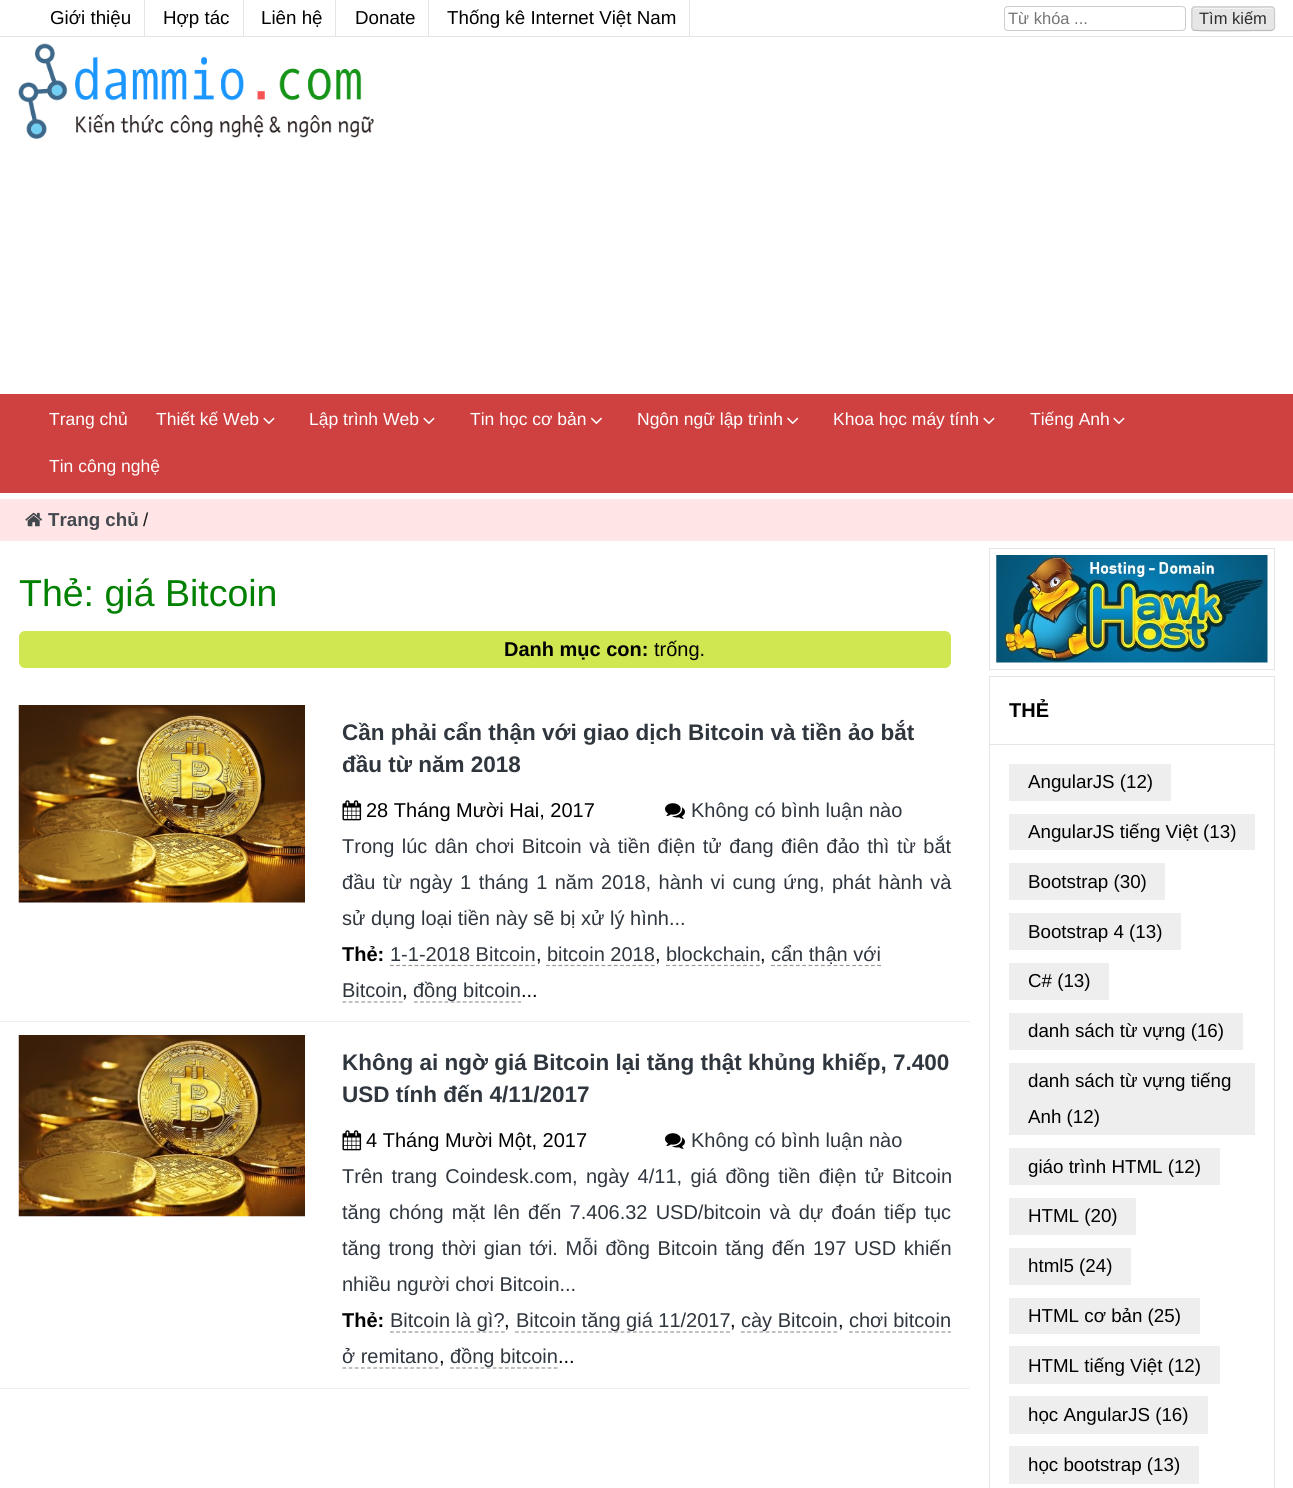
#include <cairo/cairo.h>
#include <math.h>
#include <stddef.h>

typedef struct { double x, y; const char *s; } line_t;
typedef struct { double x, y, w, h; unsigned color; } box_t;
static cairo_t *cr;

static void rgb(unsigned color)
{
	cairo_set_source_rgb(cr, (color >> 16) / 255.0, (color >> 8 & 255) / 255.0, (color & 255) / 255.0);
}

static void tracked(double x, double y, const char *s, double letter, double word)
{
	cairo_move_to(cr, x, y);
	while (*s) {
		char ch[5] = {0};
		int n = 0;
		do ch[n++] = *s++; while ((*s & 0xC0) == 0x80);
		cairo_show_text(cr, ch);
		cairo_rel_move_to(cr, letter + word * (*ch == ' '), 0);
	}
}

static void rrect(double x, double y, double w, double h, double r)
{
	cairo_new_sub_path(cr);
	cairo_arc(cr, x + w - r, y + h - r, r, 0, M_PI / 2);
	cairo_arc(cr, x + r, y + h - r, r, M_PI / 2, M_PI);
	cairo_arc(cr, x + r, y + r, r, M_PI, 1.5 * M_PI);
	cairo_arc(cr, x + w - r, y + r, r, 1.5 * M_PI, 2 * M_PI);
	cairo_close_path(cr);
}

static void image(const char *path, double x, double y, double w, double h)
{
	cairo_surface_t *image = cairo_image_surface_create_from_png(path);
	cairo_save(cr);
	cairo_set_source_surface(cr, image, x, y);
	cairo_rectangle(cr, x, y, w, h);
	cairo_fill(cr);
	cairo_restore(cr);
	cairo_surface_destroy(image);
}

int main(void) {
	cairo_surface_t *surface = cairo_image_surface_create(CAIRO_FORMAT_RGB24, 1293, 1488);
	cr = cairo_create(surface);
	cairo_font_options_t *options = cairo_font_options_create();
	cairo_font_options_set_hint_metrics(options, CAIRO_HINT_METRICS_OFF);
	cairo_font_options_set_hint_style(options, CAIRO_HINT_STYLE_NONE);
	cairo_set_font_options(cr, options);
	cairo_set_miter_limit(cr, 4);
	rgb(0xffffff);
	cairo_paint(cr);
	{
		static const box_t items[] = {
			{0, 36, 1293, 1, 0xe5e5e5},
			{144, 0, 1, 36, 0xe5e5e5},
			{243, 0, 1, 36, 0xe5e5e5},
			{335, 0, 1, 36, 0xe5e5e5},
			{428, 0, 1, 36, 0xe5e5e5},
			{689, 0, 1, 36, 0xe5e5e5},
		};
		for (size_t i = 0; i < sizeof items / sizeof *items; i++) {
			rgb(items[i].color);
			cairo_rectangle(cr, items[i].x, items[i].y, items[i].w, items[i].h);
			cairo_fill(cr);
		}
	}
	rrect(1004.5, 6.5, 181, 24, 3.5);
	rgb(0xcccccc);
	cairo_set_line_width(cr, 1);
	cairo_stroke(cr);
	rgb(0xe6e6e6);
	rrect(1191, 6, 84, 25, 4);
	cairo_fill(cr);
	rgb(0xf3f3f3);
	cairo_new_path(cr);
	cairo_move_to(cr, 1195, 9);
	cairo_line_to(cr, 1271, 9);
	cairo_curve_to(cr, 1273, 9, 1274, 10, 1274, 11);
	cairo_curve_to(cr, 1274, 9, 1273, 8, 1272, 8);
	cairo_line_to(cr, 1195, 8);
	cairo_line_to(cr, 1193, 10);
	cairo_close_path(cr);
	cairo_fill(cr);
	cairo_new_path(cr);
	cairo_move_to(cr, 1273.5, 29.5);
	cairo_line_to(cr, 1271, 30.5);
	cairo_line_to(cr, 1258.5, 30.5);
	cairo_curve_to(cr, 1251, 30.5, 1195, 31.5, 1193, 30);
	cairo_line_to(cr, 1193, 29.5);
	rgb(0xbbbbbb);
	cairo_set_line_width(cr, 1.2);
	cairo_stroke(cr);
	cairo_new_path(cr);
	cairo_move_to(cr, 1193, 29.5);
	cairo_curve_to(cr, 1191, 28, 1192, 24, 1192, 21.5);
	cairo_curve_to(cr, 1192, 4, 1189, 7, 1207.5, 7);
	cairo_line_to(cr, 1258.5, 7);
	cairo_curve_to(cr, 1277, 7, 1274.5, 4, 1274.5, 21.5);
	cairo_curve_to(cr, 1274.5, 24, 1275.5, 28, 1273.5, 29.5);
	rgb(0xcccccc);
	cairo_stroke(cr);
	image("img/1.png", 18, 43, 356, 96);
	rgb(0xcf4141);
	cairo_rectangle(cr, 0, 394, 1293, 99);
	cairo_fill(cr);
	image("img/2.png", 263, 417, 12, 8);
	image("img/2.png", 423, 417, 12, 8);
	image("img/3.png", 590, 417, 12, 8);
	image("img/4.png", 787, 417, 12, 8);
	image("img/2.png", 983, 417, 12, 8);
	image("img/2.png", 1113, 417, 12, 8);
	rgb(0xffe5e5);
	cairo_rectangle(cr, 0, 499, 1293, 42);
	cairo_fill(cr);
	image("img/5.png", 25, 512, 18, 15);
	rgb(0xd1e751);
	rrect(19, 631, 932, 37, 6);
	cairo_fill(cr);
	rgb(0xeeeeee);
	cairo_rectangle(cr, 0, 1021, 970, 1);
	cairo_fill(cr);
	image("img/6.png", 18, 705, 287, 198);
	image("img/7.png", 342, 800, 20, 21);
	image("img/8.png", 665, 803, 20, 16);
	cairo_new_path(cr);
	cairo_move_to(cr, 390, 965.5);
	cairo_line_to(cr, 535, 965.5);
	rgb(0x999999);
	cairo_set_dash(cr, (double[]){3.75, 2.39}, 2, 0);
	cairo_stroke(cr);
	cairo_new_path(cr);
	cairo_move_to(cr, 546, 965.5);
	cairo_line_to(cr, 655, 965.5);
	cairo_set_dash(cr, (double[]){3.75, 2.42}, 2, 0);
	cairo_stroke(cr);
	cairo_new_path(cr);
	cairo_move_to(cr, 666, 965.5);
	cairo_line_to(cr, 760, 965.5);
	cairo_set_dash(cr, (double[]){3.75, 2.68}, 2, 0);
	cairo_stroke(cr);
	cairo_new_path(cr);
	cairo_move_to(cr, 771, 965.5);
	cairo_line_to(cr, 881, 965.5);
	cairo_set_dash(cr, (double[]){3.75, 2.5}, 2, 0);
	cairo_stroke(cr);
	cairo_new_path(cr);
	cairo_move_to(cr, 342.5, 1002);
	cairo_line_to(cr, 402.5, 1002);
	cairo_stroke(cr);
	cairo_new_path(cr);
	cairo_move_to(cr, 414, 1002);
	cairo_line_to(cr, 521, 1002);
	cairo_set_dash(cr, (double[]){3.75, 2.35}, 2, 0);
	cairo_stroke(cr);
	rgb(0xeeeeee);
	cairo_rectangle(cr, 0, 1388, 970, 1);
	cairo_fill(cr);
	image("img/9.png", 18, 1035, 287, 182);
	image("img/7.png", 342, 1130, 20, 21);
	image("img/8.png", 665, 1133, 20, 16);
	cairo_new_path(cr);
	cairo_move_to(cr, 390, 1332);
	cairo_line_to(cr, 505, 1332);
	rgb(0x999999);
	cairo_set_dash(cr, (double[]){3.75, 2.42}, 2, 0);
	cairo_stroke(cr);
	cairo_new_path(cr);
	cairo_move_to(cr, 515, 1332);
	cairo_line_to(cr, 730, 1332);
	cairo_set_dash(cr, (double[]){3.75, 2.46}, 2, 0);
	cairo_stroke(cr);
	cairo_new_path(cr);
	cairo_move_to(cr, 741, 1332);
	cairo_line_to(cr, 837.5, 1332);
	cairo_set_dash(cr, (double[]){3.75, 2.41}, 2, 0);
	cairo_stroke(cr);
	cairo_new_path(cr);
	cairo_move_to(cr, 849, 1332);
	cairo_line_to(cr, 951, 1332);
	cairo_set_dash(cr, (double[]){3.75, 2.42}, 2, 0);
	cairo_stroke(cr);
	cairo_new_path(cr);
	cairo_move_to(cr, 342.5, 1368);
	cairo_line_to(cr, 439, 1368);
	cairo_set_dash(cr, (double[]){3.75, 2.41}, 2, 0);
	cairo_stroke(cr);
	cairo_new_path(cr);
	cairo_move_to(cr, 450, 1368);
	cairo_line_to(cr, 557.5, 1368);
	cairo_set_dash(cr, (double[]){3.75, 2.35}, 2, 0);
	cairo_stroke(cr);
	cairo_rectangle(cr, 989.5, 548.5, 285, 121);
	rgb(0xe5e5e5);
	cairo_set_line_width(cr, 1);
	cairo_set_dash(cr, NULL, 0, 0);
	cairo_stroke(cr);
	image("img/10.png", 996, 555, 272, 108);
	cairo_rectangle(cr, 989.5, 676.5, 285, 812);
	cairo_stroke(cr);
	{
		static const box_t items[] = {
			{990, 744, 284, 1, 0xe5e5e5},
			{1009, 764, 162, 37, 0xeeeeee},
			{1009, 814, 246, 36, 0xeeeeee},
			{1009, 863, 156, 37, 0xeeeeee},
			{1009, 913, 172, 37, 0xeeeeee},
			{1009, 963, 100, 37, 0xeeeeee},
			{1009, 1013, 234, 37, 0xeeeeee},
			{1009, 1063, 246, 72, 0xeeeeee},
			{1009, 1148, 211, 37, 0xeeeeee},
			{1009, 1198, 127, 37, 0xeeeeee},
			{1009, 1248, 122, 37, 0xeeeeee},
			{1009, 1298, 191, 36, 0xeeeeee},
			{1009, 1346, 211, 38, 0xeeeeee},
			{1009, 1396, 199, 38, 0xeeeeee},
			{1009, 1446, 190, 38, 0xeeeeee},
		};
		for (size_t i = 0; i < sizeof items / sizeof *items; i++) {
			rgb(items[i].color);
			cairo_rectangle(cr, items[i].x, items[i].y, items[i].w, items[i].h);
			cairo_fill(cr);
		}
	}
	cairo_select_font_face(cr, "Liberation Sans", CAIRO_FONT_SLANT_NORMAL, CAIRO_FONT_WEIGHT_NORMAL);
	cairo_set_font_size(cr, 18.75);
	rgb(0x000000);
	{
		static const line_t items[] = {
			{50, 24, "Giới thiệu"},
			{163, 24, "Hợp tác"},
			{261, 24, "Liên hệ"},
			{355, 24, "Donate"},
			{447, 24, "Thống kê Internet Việt Nam"},
		};
		for (size_t i = 0; i < sizeof items / sizeof *items; i++) {
			cairo_move_to(cr, items[i].x, items[i].y);
			cairo_show_text(cr, items[i].s);
		}
	}
	cairo_set_font_size(cr, 16.5);
	rgb(0x757575);
	cairo_move_to(cr, 1008, 24);
	cairo_show_text(cr, "Từ khóa ...");
	rgb(0x2e2e2e);
	cairo_move_to(cr, 1199, 24);
	cairo_show_text(cr, "Tìm kiếm");
	cairo_set_font_size(cr, 17.5);
	rgb(0xffffff);
	{
		static const line_t items[] = {
			{49, 425, "Trang chủ"},
			{156, 425, "Thiết kế Web"},
			{309, 425, "Lập trình Web"},
			{470, 425, "Tin học cơ bản"},
			{637, 425, "Ngôn ngữ lập trình"},
			{833, 425, "Khoa học máy tính"},
			{1030, 425, "Tiếng Anh"},
			{49, 472, "Tin công nghệ"},
		};
		for (size_t i = 0; i < sizeof items / sizeof *items; i++) {
			cairo_move_to(cr, items[i].x, items[i].y);
			cairo_show_text(cr, items[i].s);
		}
	}
	cairo_select_font_face(cr, "Liberation Sans", CAIRO_FONT_SLANT_NORMAL, CAIRO_FONT_WEIGHT_BOLD);
	cairo_set_font_size(cr, 18.75);
	rgb(0x44484f);
	cairo_move_to(cr, 48, 526);
	cairo_show_text(cr, "Trang chủ");
	cairo_select_font_face(cr, "Liberation Sans", CAIRO_FONT_SLANT_NORMAL, CAIRO_FONT_WEIGHT_NORMAL);
	rgb(0x1a1717);
	cairo_move_to(cr, 143, 526);
	cairo_show_text(cr, "/");
	cairo_set_font_size(cr, 37.5);
	rgb(0x008000);
	cairo_move_to(cr, 19, 606);
	cairo_show_text(cr, "Thẻ: giá Bitcoin");
	cairo_select_font_face(cr, "Liberation Sans", CAIRO_FONT_SLANT_NORMAL, CAIRO_FONT_WEIGHT_BOLD);
	cairo_set_font_size(cr, 20);
	rgb(0x000000);
	cairo_move_to(cr, 504, 656);
	cairo_show_text(cr, "Danh mục con:");
	cairo_select_font_face(cr, "Liberation Sans", CAIRO_FONT_SLANT_NORMAL, CAIRO_FONT_WEIGHT_NORMAL);
	cairo_move_to(cr, 654, 656);
	cairo_show_text(cr, "trống.");
	cairo_select_font_face(cr, "Liberation Sans", CAIRO_FONT_SLANT_NORMAL, CAIRO_FONT_WEIGHT_BOLD);
	cairo_set_font_size(cr, 22.5);
	rgb(0x2f363e);
	cairo_move_to(cr, 342, 740);
	cairo_show_text(cr, "Cần phải cẩn thận với giao dịch Bitcoin và tiền ảo bắt");
	cairo_move_to(cr, 342, 772);
	cairo_show_text(cr, "đầu từ năm 2018");
	cairo_select_font_face(cr, "Liberation Sans", CAIRO_FONT_SLANT_NORMAL, CAIRO_FONT_WEIGHT_NORMAL);
	cairo_set_font_size(cr, 20);
	rgb(0x000000);
	cairo_move_to(cr, 366, 817);
	cairo_show_text(cr, "28 Tháng Mười Hai, 2017");
	rgb(0x2f363e);
	cairo_move_to(cr, 691, 817);
	cairo_show_text(cr, "Không có bình luận nào");
	tracked(342, 853, "Trong lúc dân chơi Bitcoin và tiền điện tử đang điên đảo thì từ bắt", 0, 1.9);
	tracked(342, 889, "đầu từ ngày 1 tháng 1 năm 2018, hành vi cung ứng, phát hành và", 0, 1.9);
	cairo_move_to(cr, 342, 925);
	cairo_show_text(cr, "sử dụng loại tiền này sẽ bị xử lý hình...");
	cairo_select_font_face(cr, "Liberation Sans", CAIRO_FONT_SLANT_NORMAL, CAIRO_FONT_WEIGHT_BOLD);
	rgb(0x000000);
	cairo_move_to(cr, 342, 961);
	cairo_show_text(cr, "Thẻ:");
	cairo_select_font_face(cr, "Liberation Sans", CAIRO_FONT_SLANT_NORMAL, CAIRO_FONT_WEIGHT_NORMAL);
	rgb(0x2f363e);
	cairo_move_to(cr, 390, 961);
	cairo_show_text(cr, "1-1-2018 Bitcoin");
	rgb(0x000000);
	cairo_move_to(cr, 536, 961);
	cairo_show_text(cr, ",");
	rgb(0x2f363e);
	cairo_move_to(cr, 547, 961);
	cairo_show_text(cr, "bitcoin 2018");
	rgb(0x000000);
	cairo_move_to(cr, 655, 961);
	cairo_show_text(cr, ",");
	rgb(0x2f363e);
	cairo_move_to(cr, 666, 961);
	cairo_show_text(cr, "blockchain");
	rgb(0x000000);
	cairo_move_to(cr, 760, 961);
	cairo_show_text(cr, ",");
	rgb(0x2f363e);
	cairo_move_to(cr, 771, 961);
	cairo_show_text(cr, "cẩn thận với");
	cairo_move_to(cr, 342, 997);
	cairo_show_text(cr, "Bitcoin");
	rgb(0x000000);
	cairo_move_to(cr, 402, 997);
	cairo_show_text(cr, ",");
	rgb(0x2f363e);
	cairo_move_to(cr, 413, 997);
	cairo_show_text(cr, "đồng bitcoin");
	rgb(0x000000);
	cairo_move_to(cr, 521, 997);
	cairo_show_text(cr, "...");
	cairo_select_font_face(cr, "Liberation Sans", CAIRO_FONT_SLANT_NORMAL, CAIRO_FONT_WEIGHT_BOLD);
	cairo_set_font_size(cr, 22.5);
	rgb(0x2f363e);
	cairo_move_to(cr, 342, 1070);
	cairo_show_text(cr, "Không ai ngờ giá Bitcoin lại tăng thật khủng khiếp, 7.400");
	cairo_move_to(cr, 342, 1102);
	cairo_show_text(cr, "USD tính đến 4/11/2017");
	cairo_select_font_face(cr, "Liberation Sans", CAIRO_FONT_SLANT_NORMAL, CAIRO_FONT_WEIGHT_NORMAL);
	cairo_set_font_size(cr, 20);
	rgb(0x000000);
	cairo_move_to(cr, 366, 1147);
	cairo_show_text(cr, "4 Tháng Mười Một, 2017");
	rgb(0x2f363e);
	cairo_move_to(cr, 691, 1147);
	cairo_show_text(cr, "Không có bình luận nào");
	tracked(342, 1183, "Trên trang Coindesk.com, ngày 4/11, giá đồng tiền điện tử Bitcoin", 0, 2.75);
	tracked(342, 1219, "tăng chóng mặt lên đến 7.406.32 USD/bitcoin và dự đoán tiếp tục", 0, 2.6);
	tracked(342, 1255, "tăng trong thời gian tới. Mỗi đồng Bitcoin tăng đến 197 USD khiến", 0, 2.1);
	cairo_move_to(cr, 342, 1291);
	cairo_show_text(cr, "nhiều người chơi Bitcoin...");
	cairo_select_font_face(cr, "Liberation Sans", CAIRO_FONT_SLANT_NORMAL, CAIRO_FONT_WEIGHT_BOLD);
	rgb(0x000000);
	cairo_move_to(cr, 342, 1327);
	cairo_show_text(cr, "Thẻ:");
	cairo_select_font_face(cr, "Liberation Sans", CAIRO_FONT_SLANT_NORMAL, CAIRO_FONT_WEIGHT_NORMAL);
	rgb(0x2f363e);
	cairo_move_to(cr, 390, 1327);
	cairo_show_text(cr, "Bitcoin là gì?");
	rgb(0x000000);
	cairo_move_to(cr, 504, 1327);
	cairo_show_text(cr, ",");
	rgb(0x2f363e);
	cairo_move_to(cr, 516, 1327);
	cairo_show_text(cr, "Bitcoin tăng giá 11/2017");
	rgb(0x000000);
	cairo_move_to(cr, 730, 1327);
	cairo_show_text(cr, ",");
	rgb(0x2f363e);
	cairo_move_to(cr, 741, 1327);
	cairo_show_text(cr, "cày Bitcoin");
	rgb(0x000000);
	cairo_move_to(cr, 838, 1327);
	cairo_show_text(cr, ",");
	rgb(0x2f363e);
	cairo_move_to(cr, 849, 1327);
	cairo_show_text(cr, "chơi bitcoin");
	cairo_move_to(cr, 342, 1363);
	cairo_show_text(cr, "ở remitano");
	rgb(0x000000);
	cairo_move_to(cr, 439, 1363);
	cairo_show_text(cr, ",");
	rgb(0x2f363e);
	cairo_move_to(cr, 450, 1363);
	cairo_show_text(cr, "đồng bitcoin");
	rgb(0x000000);
	cairo_move_to(cr, 558, 1363);
	cairo_show_text(cr, "...");
	cairo_select_font_face(cr, "Liberation Sans", CAIRO_FONT_SLANT_NORMAL, CAIRO_FONT_WEIGHT_BOLD);
	cairo_move_to(cr, 1009, 717);
	cairo_show_text(cr, "THẺ");
	cairo_select_font_face(cr, "Liberation Sans", CAIRO_FONT_SLANT_NORMAL, CAIRO_FONT_WEIGHT_NORMAL);
	cairo_set_font_size(cr, 18.75);
	{
		static const line_t items[] = {
			{1028, 788, "AngularJS (12)"},
			{1028, 838, "AngularJS tiếng Việt (13)"},
			{1028, 888, "Bootstrap (30)"},
			{1028, 938, "Bootstrap 4 (13)"},
			{1028, 987, "C# (13)"},
			{1028, 1037, "danh sách từ vựng (16)"},
			{1028, 1087, "danh sách từ vựng tiếng"},
			{1028, 1123, "Anh (12)"},
			{1028, 1173, "giáo trình HTML (12)"},
			{1028, 1222, "HTML (20)"},
			{1028, 1272, "html5 (24)"},
			{1028, 1322, "HTML cơ bản (25)"},
			{1028, 1372, "HTML tiếng Việt (12)"},
			{1028, 1421, "học AngularJS (16)"},
			{1028, 1471, "học bootstrap (13)"},
		};
		for (size_t i = 0; i < sizeof items / sizeof *items; i++) {
			cairo_move_to(cr, items[i].x, items[i].y);
			cairo_show_text(cr, items[i].s);
		}
	}
	cairo_surface_write_to_png(surface, "page.png");
	cairo_font_options_destroy(options);
	cairo_destroy(cr);
	cairo_surface_destroy(surface);
	return 0;
}
